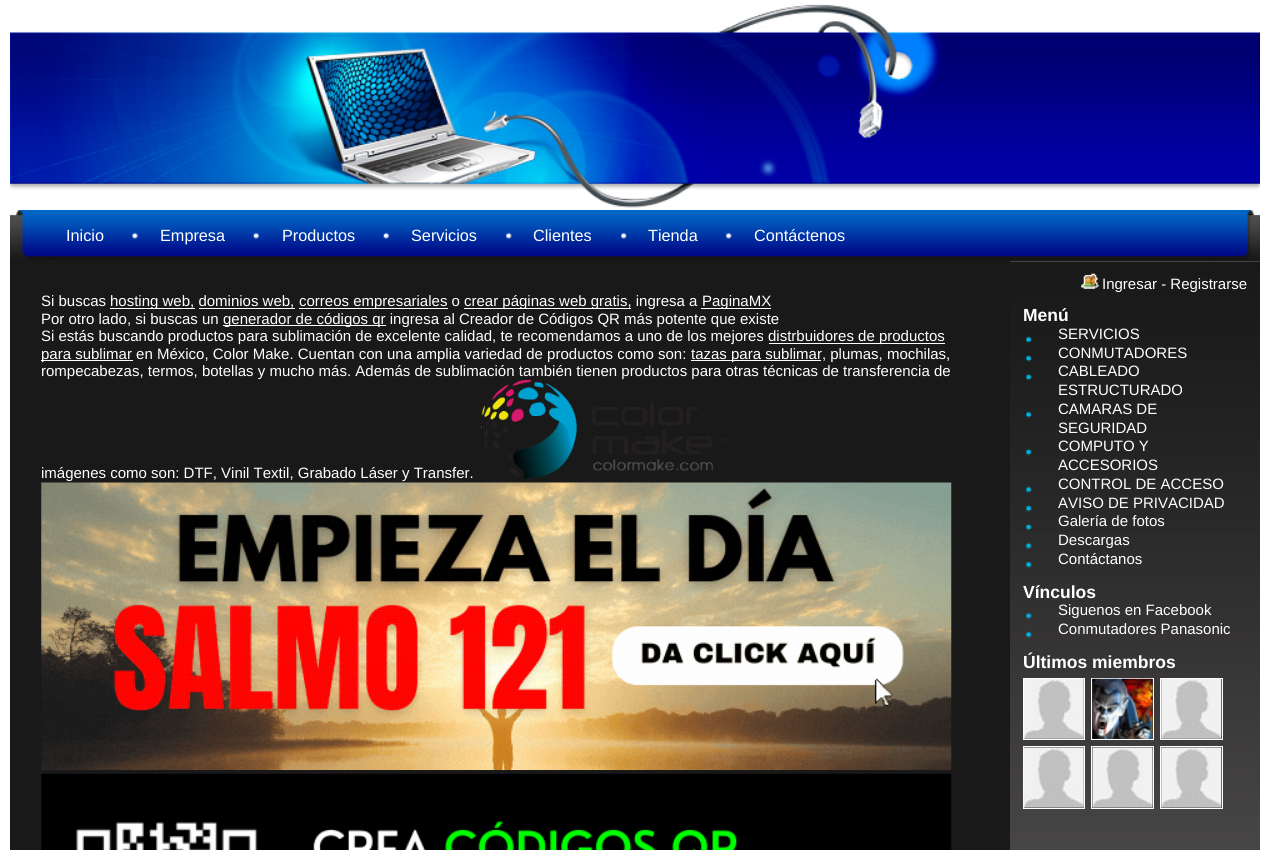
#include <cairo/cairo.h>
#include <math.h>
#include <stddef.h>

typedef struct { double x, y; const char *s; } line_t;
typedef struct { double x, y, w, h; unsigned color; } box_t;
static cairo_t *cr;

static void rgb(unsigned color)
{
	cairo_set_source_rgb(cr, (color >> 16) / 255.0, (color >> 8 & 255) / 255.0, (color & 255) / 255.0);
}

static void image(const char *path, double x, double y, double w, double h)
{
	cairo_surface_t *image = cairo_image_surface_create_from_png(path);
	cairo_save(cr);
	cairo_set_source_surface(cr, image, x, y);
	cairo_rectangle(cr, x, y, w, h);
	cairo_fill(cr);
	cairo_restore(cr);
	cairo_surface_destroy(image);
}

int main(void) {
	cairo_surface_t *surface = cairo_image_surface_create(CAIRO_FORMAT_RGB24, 1270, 850);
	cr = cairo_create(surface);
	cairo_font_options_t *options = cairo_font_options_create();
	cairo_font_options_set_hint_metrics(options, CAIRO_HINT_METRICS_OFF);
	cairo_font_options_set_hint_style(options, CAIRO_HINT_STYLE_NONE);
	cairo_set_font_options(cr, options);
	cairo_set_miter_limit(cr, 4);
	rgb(0xffffff);
	cairo_paint(cr);
	image("img/1.png", 10, 4, 1250, 204);
	image("img/2.png", 10, 210, 1250, 52);
	image("img/3.png", 132, 232, 6, 7);
	image("img/4.png", 253, 232, 6, 7);
	image("img/4.png", 383, 232, 6, 7);
	image("img/5.png", 506, 232, 6, 7);
	image("img/6.png", 621, 232, 6, 7);
	image("img/5.png", 726, 232, 6, 7);
	{
		static const box_t items[] = {
			{10, 261, 1000, 589, 0x191919},
			{110, 308, 85, 1, 0xffffff},
			{299, 308, 149, 1, 0xffffff},
			{464, 308, 167, 1, 0xffffff},
			{701, 308, 70, 1, 0xffffff},
			{199, 308, 96, 1, 0xffffff},
			{223, 325, 163, 1, 0xffffff},
			{769, 343, 176, 1, 0xffffff},
			{41, 360, 92, 1, 0xffffff},
			{691, 360, 130, 1, 0xffffff},
		};
		for (size_t i = 0; i < sizeof items / sizeof *items; i++) {
			rgb(items[i].color);
			cairo_rectangle(cr, items[i].x, items[i].y, items[i].w, items[i].h);
			cairo_fill(cr);
		}
	}
	image("img/7.png", 481, 380, 246, 99);
	image("img/8.png", 41, 482, 911, 288);
	image("img/9.png", 41, 773, 911, 77);
	image("img/10.png", 1010, 261, 250, 589);
	image("img/11.png", 1081, 273, 18, 16);
	image("img/12.png", 1026, 336, 6, 7);
	image("img/13.png", 1026, 355, 6, 7);
	image("img/14.png", 1026, 373, 6, 8);
	image("img/15.png", 1026, 411, 6, 7);
	image("img/16.png", 1026, 448, 6, 8);
	image("img/17.png", 1026, 486, 6, 7);
	image("img/18.png", 1026, 505, 6, 7);
	image("img/19.png", 1026, 523, 6, 8);
	image("img/20.png", 1026, 542, 6, 7);
	image("img/21.png", 1026, 561, 6, 7);
	image("img/22.png", 1026, 612, 6, 7);
	image("img/23.png", 1026, 631, 6, 7);
	cairo_rectangle(cr, 1023.5, 678.5, 61, 61);
	cairo_set_line_width(cr, 1);
	cairo_stroke(cr);
	image("img/24.png", 1023, 678, 61, 61);
	cairo_rectangle(cr, 1091.5, 678.5, 62, 61);
	cairo_stroke(cr);
	image("img/25.png", 1092, 678, 61, 61);
	cairo_rectangle(cr, 1160.5, 678.5, 62, 61);
	cairo_stroke(cr);
	image("img/26.png", 1161, 678, 61, 61);
	cairo_rectangle(cr, 1023.5, 746.5, 61, 62);
	cairo_stroke(cr);
	image("img/27.png", 1023, 747, 61, 61);
	cairo_rectangle(cr, 1091.5, 746.5, 62, 62);
	cairo_stroke(cr);
	image("img/28.png", 1092, 747, 61, 61);
	cairo_rectangle(cr, 1160.5, 746.5, 62, 62);
	cairo_stroke(cr);
	image("img/29.png", 1161, 747, 61, 61);
	cairo_select_font_face(cr, "Liberation Sans", CAIRO_FONT_SLANT_NORMAL, CAIRO_FONT_WEIGHT_NORMAL);
	cairo_set_font_size(cr, 16.25);
	{
		static const line_t items[] = {
			{66, 241, "Inicio"},
			{160, 241, "Empresa"},
			{282, 241, "Productos"},
			{411, 241, "Servicios"},
			{533, 241, "Clientes"},
			{648, 241, "Tienda"},
			{754, 241, "Contáctenos"},
		};
		for (size_t i = 0; i < sizeof items / sizeof *items; i++) {
			cairo_move_to(cr, items[i].x, items[i].y);
			cairo_show_text(cr, items[i].s);
		}
	}
	cairo_set_font_size(cr, 15);
	{
		static const line_t items[] = {
			{41, 306, "Si buscas"},
			{110, 306, "hosting web, dominios web,"},
			{299, 306, "correos empresariales o"},
			{464, 306, "crear páginas web gratis, ingresa a"},
			{702, 306, "PaginaMX"},
			{41, 324, "Por otro lado, si buscas un"},
			{223, 324, "generador de códigos qr ingresa al Creador de Códigos QR más potente que existe"},
			{41, 341, "Si estás buscando productos para sublimación de excelente calidad, te recomendamos a uno de los mejores"},
			{768, 341, "distrbuidores de productos"},
			{41, 359, "para sublimar en México, Color Make. Cuentan con una amplia variedad de productos como son:"},
			{691, 359, "tazas para sublimar, plumas, mochilas,"},
			{41, 376, "rompecabezas, termos, botellas y mucho más. Además de sublimación también tienen productos para otras técnicas de transferencia de"},
			{41, 478, "imágenes como son: DTF, Vinil Textil, Grabado Láser y Transfer."},
			{1102, 289, "Ingresar - Registrarse"},
		};
		for (size_t i = 0; i < sizeof items / sizeof *items; i++) {
			cairo_move_to(cr, items[i].x, items[i].y);
			cairo_show_text(cr, items[i].s);
		}
	}
	cairo_select_font_face(cr, "Liberation Sans", CAIRO_FONT_SLANT_NORMAL, CAIRO_FONT_WEIGHT_BOLD);
	cairo_set_font_size(cr, 17.5);
	cairo_move_to(cr, 1023, 321);
	cairo_show_text(cr, "Menú");
	cairo_select_font_face(cr, "Liberation Sans", CAIRO_FONT_SLANT_NORMAL, CAIRO_FONT_WEIGHT_NORMAL);
	cairo_set_font_size(cr, 15);
	{
		static const line_t items[] = {
			{1058, 339, "SERVICIOS"},
			{1058, 358, "CONMUTADORES"},
			{1058, 376, "CABLEADO"},
			{1058, 395, "ESTRUCTURADO"},
			{1058, 414, "CAMARAS DE"},
			{1058, 433, "SEGURIDAD"},
			{1058, 451, "COMPUTO Y"},
			{1058, 470, "ACCESORIOS"},
			{1058, 489, "CONTROL DE ACCESO"},
			{1058, 508, "AVISO DE PRIVACIDAD"},
			{1058, 526, "Galería de fotos"},
			{1058, 545, "Descargas"},
			{1058, 564, "Contáctanos"},
		};
		for (size_t i = 0; i < sizeof items / sizeof *items; i++) {
			cairo_move_to(cr, items[i].x, items[i].y);
			cairo_show_text(cr, items[i].s);
		}
	}
	cairo_select_font_face(cr, "Liberation Sans", CAIRO_FONT_SLANT_NORMAL, CAIRO_FONT_WEIGHT_BOLD);
	cairo_set_font_size(cr, 17.5);
	cairo_move_to(cr, 1023, 598);
	cairo_show_text(cr, "Vínculos");
	cairo_select_font_face(cr, "Liberation Sans", CAIRO_FONT_SLANT_NORMAL, CAIRO_FONT_WEIGHT_NORMAL);
	cairo_set_font_size(cr, 15);
	cairo_move_to(cr, 1058, 615);
	cairo_show_text(cr, "Siguenos en Facebook");
	cairo_move_to(cr, 1058, 634);
	cairo_show_text(cr, "Conmutadores Panasonic");
	cairo_select_font_face(cr, "Liberation Sans", CAIRO_FONT_SLANT_NORMAL, CAIRO_FONT_WEIGHT_BOLD);
	cairo_set_font_size(cr, 17.5);
	cairo_move_to(cr, 1023, 668);
	cairo_show_text(cr, "Últimos miembros");
	cairo_surface_write_to_png(surface, "page.png");
	cairo_font_options_destroy(options);
	cairo_destroy(cr);
	cairo_surface_destroy(surface);
	return 0;
}
